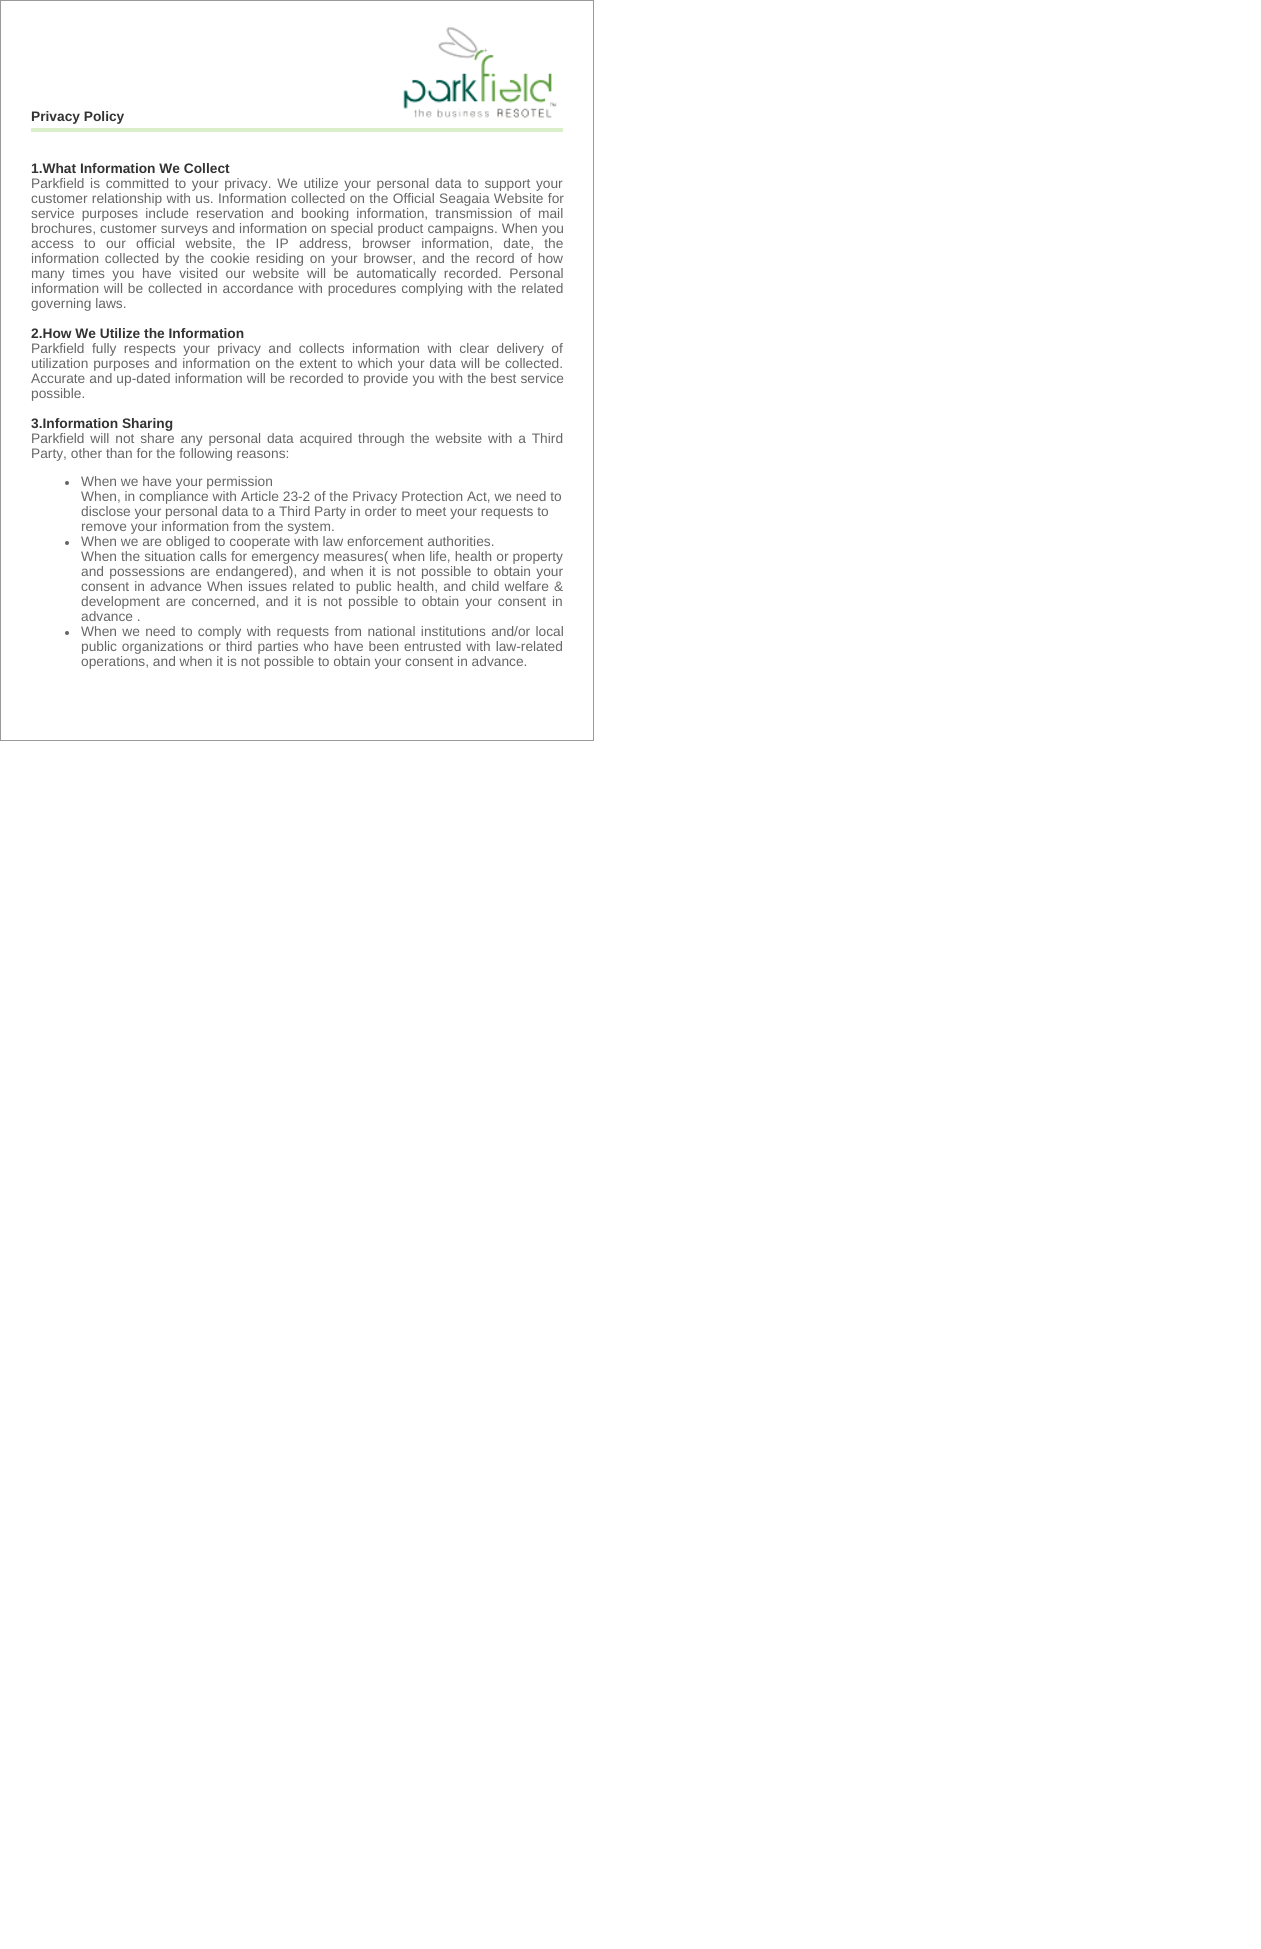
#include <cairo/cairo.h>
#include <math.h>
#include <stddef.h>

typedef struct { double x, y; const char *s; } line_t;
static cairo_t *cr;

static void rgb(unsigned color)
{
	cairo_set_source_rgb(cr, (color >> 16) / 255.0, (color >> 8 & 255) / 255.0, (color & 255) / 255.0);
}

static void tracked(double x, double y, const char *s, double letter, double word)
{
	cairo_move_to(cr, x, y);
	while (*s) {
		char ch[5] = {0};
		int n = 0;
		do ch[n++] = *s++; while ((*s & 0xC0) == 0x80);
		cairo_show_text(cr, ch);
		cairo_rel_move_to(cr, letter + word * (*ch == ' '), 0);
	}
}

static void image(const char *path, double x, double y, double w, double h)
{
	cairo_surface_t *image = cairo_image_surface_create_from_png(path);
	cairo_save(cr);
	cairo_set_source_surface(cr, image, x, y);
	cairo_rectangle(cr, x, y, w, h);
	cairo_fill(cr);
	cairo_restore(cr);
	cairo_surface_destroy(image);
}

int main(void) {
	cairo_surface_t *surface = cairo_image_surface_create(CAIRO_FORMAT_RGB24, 1261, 1949);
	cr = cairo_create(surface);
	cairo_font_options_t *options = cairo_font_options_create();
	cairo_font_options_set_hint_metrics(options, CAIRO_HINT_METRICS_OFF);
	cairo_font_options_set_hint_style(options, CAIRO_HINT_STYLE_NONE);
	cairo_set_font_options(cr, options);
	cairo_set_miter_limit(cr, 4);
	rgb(0xffffff);
	cairo_paint(cr);
	cairo_rectangle(cr, 0.5, 0.5, 593, 740);
	rgb(0x999999);
	cairo_set_line_width(cr, 1);
	cairo_stroke(cr);
	image("img/1.png", 403, 27, 154, 91);
	rgb(0xdaefca);
	cairo_rectangle(cr, 31, 128, 532, 4);
	cairo_fill(cr);
	rgb(0x666666);
	cairo_arc(cr, 67, 483, 2, 0, 2 * M_PI);
	cairo_fill(cr);
	cairo_arc(cr, 67, 543, 2, 0, 2 * M_PI);
	cairo_fill(cr);
	cairo_arc(cr, 67, 633, 2, 0, 2 * M_PI);
	cairo_fill(cr);
	cairo_select_font_face(cr, "Liberation Sans", CAIRO_FONT_SLANT_NORMAL, CAIRO_FONT_WEIGHT_BOLD);
	cairo_set_font_size(cr, 13.75);
	rgb(0x333333);
	cairo_move_to(cr, 31, 121);
	cairo_show_text(cr, "Privacy Policy");
	cairo_move_to(cr, 31, 173);
	cairo_show_text(cr, "1.What Information We Collect");
	cairo_select_font_face(cr, "Liberation Sans", CAIRO_FONT_SLANT_NORMAL, CAIRO_FONT_WEIGHT_NORMAL);
	rgb(0x666666);
	tracked(31, 188, "Parkfield is committed to your privacy. We utilize your personal data to support your", 0, 1.8);
	tracked(31, 203, "customer relationship with us. Information collected on the Official Seagaia Website for", 0, 0.5);
	tracked(31, 218, "service purposes include reservation and booking information, transmission of mail", 0, 3.25);
	tracked(31, 233, "brochures, customer surveys and information on special product campaigns. When you", 0, 0.25);
	tracked(31, 248, "access to our official website, the IP address, browser information, date, the", 0, 6.5);
	tracked(31, 263, "information collected by the cookie residing on your browser, and the record of how", 0, 2);
	tracked(31, 278, "many times you have visited our website will be automatically recorded. Personal", 0, 3.6);
	tracked(31, 293, "information will be collected in accordance with procedures complying with the related", 0, 1);
	cairo_move_to(cr, 31, 308);
	cairo_show_text(cr, "governing laws.");
	cairo_select_font_face(cr, "Liberation Sans", CAIRO_FONT_SLANT_NORMAL, CAIRO_FONT_WEIGHT_BOLD);
	rgb(0x333333);
	cairo_move_to(cr, 31, 338);
	cairo_show_text(cr, "2.How We Utilize the Information");
	cairo_select_font_face(cr, "Liberation Sans", CAIRO_FONT_SLANT_NORMAL, CAIRO_FONT_WEIGHT_NORMAL);
	rgb(0x666666);
	tracked(31, 353, "Parkfield fully respects your privacy and collects information with clear delivery of", 0, 3.6);
	tracked(31, 368, "utilization purposes and information on the extent to which your data will be collected.", 0, 1);
	tracked(31, 383, "Accurate and up-dated information will be recorded to provide you with the best service", 0, 0.25);
	cairo_move_to(cr, 31, 398);
	cairo_show_text(cr, "possible.");
	cairo_select_font_face(cr, "Liberation Sans", CAIRO_FONT_SLANT_NORMAL, CAIRO_FONT_WEIGHT_BOLD);
	rgb(0x333333);
	cairo_move_to(cr, 31, 428);
	cairo_show_text(cr, "3.Information Sharing");
	cairo_select_font_face(cr, "Liberation Sans", CAIRO_FONT_SLANT_NORMAL, CAIRO_FONT_WEIGHT_NORMAL);
	rgb(0x666666);
	tracked(31, 443, "Parkfield will not share any personal data acquired through the website with a Third", 0, 2);
	{
		static const line_t items[] = {
			{31, 458, "Party, other than for the following reasons:"},
			{81, 486, "When we have your permission"},
			{81, 501, "When, in compliance with Article 23-2 of the Privacy Protection Act, we need to"},
			{81, 516, "disclose your personal data to a Third Party in order to meet your requests to"},
			{81, 531, "remove your information from the system."},
			{81, 546, "When we are obliged to cooperate with law enforcement authorities."},
		};
		for (size_t i = 0; i < sizeof items / sizeof *items; i++) {
			cairo_move_to(cr, items[i].x, items[i].y);
			cairo_show_text(cr, items[i].s);
		}
	}
	tracked(81, 561, "When the situation calls for emergency measures( when life, health or property", 0, 0.25);
	tracked(81, 576, "and possessions are endangered), and when it is not possible to obtain your", 0, 1.5);
	tracked(81, 591, "consent in advance When issues related to public health, and child welfare &", 0, 1.25);
	tracked(81, 606, "development are concerned, and it is not possible to obtain your consent in", 0, 2.1);
	cairo_move_to(cr, 81, 621);
	cairo_show_text(cr, "advance .");
	tracked(81, 636, "When we need to comply with requests from national institutions and/or local", 0, 1.5);
	tracked(81, 651, "public organizations or third parties who have been entrusted with law-related", 0, 1.1);
	cairo_move_to(cr, 81, 666);
	cairo_show_text(cr, "operations, and when it is not possible to obtain your consent in advance.");
	cairo_surface_write_to_png(surface, "page.png");
	cairo_font_options_destroy(options);
	cairo_destroy(cr);
	cairo_surface_destroy(surface);
	return 0;
}
